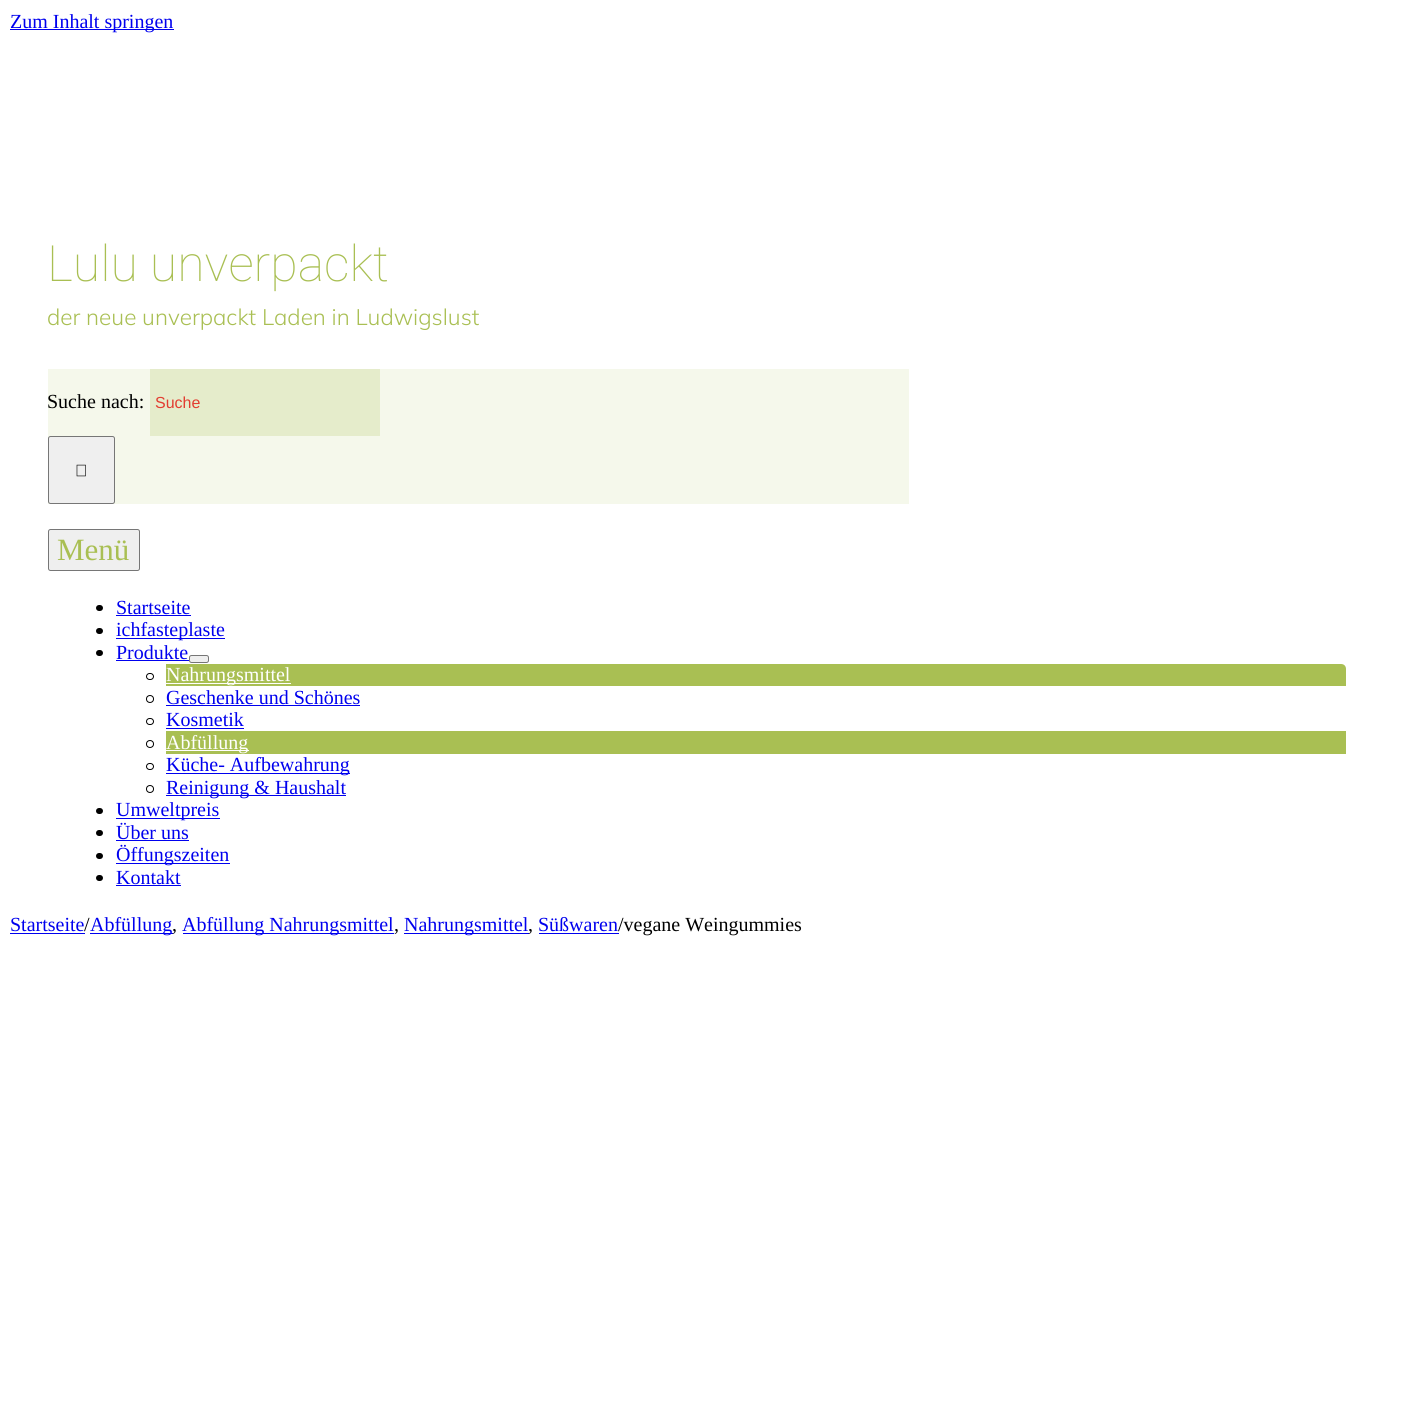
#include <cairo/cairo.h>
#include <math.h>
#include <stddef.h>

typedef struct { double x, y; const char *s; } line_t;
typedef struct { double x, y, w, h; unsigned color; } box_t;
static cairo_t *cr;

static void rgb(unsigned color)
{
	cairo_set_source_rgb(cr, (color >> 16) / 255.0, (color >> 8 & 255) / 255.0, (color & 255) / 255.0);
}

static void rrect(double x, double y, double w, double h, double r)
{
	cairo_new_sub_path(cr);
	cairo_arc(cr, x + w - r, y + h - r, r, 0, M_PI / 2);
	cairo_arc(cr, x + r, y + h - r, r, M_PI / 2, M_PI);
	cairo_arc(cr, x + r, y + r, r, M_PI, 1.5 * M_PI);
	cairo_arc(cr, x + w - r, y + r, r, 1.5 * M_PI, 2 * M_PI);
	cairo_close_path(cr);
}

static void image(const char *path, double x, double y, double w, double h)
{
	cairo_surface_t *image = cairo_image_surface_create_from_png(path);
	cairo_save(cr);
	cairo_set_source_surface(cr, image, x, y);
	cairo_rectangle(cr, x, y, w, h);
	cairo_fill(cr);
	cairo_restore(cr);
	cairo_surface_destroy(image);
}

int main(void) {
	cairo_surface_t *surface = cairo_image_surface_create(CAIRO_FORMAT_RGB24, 1412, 1421);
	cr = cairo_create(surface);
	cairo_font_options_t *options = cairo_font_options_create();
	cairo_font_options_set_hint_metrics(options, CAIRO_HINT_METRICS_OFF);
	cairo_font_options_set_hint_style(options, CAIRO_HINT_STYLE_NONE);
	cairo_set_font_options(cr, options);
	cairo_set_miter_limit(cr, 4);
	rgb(0xffffff);
	cairo_paint(cr);
	{
		static const box_t items[] = {
			{10, 29, 164, 1, 0x0000ee},
			{48, 369, 861, 135, 0xf5f8eb},
			{150, 369, 230, 67, 0xe5eccb},
		};
		for (size_t i = 0; i < sizeof items / sizeof *items; i++) {
			rgb(items[i].color);
			cairo_rectangle(cr, items[i].x, items[i].y, items[i].w, items[i].h);
			cairo_fill(cr);
		}
	}
	rgb(0xefefef);
	rrect(48.5, 436.5, 66, 67, 2);
	cairo_fill_preserve(cr);
	rgb(0x767676);
	cairo_set_line_width(cr, 1);
	cairo_stroke(cr);
	image("img/1.png", 76, 464, 10, 13);
	rgb(0xefefef);
	rrect(48.5, 529.5, 91, 41, 2);
	cairo_fill_preserve(cr);
	rgb(0x767676);
	cairo_stroke(cr);
	rgb(0x000000);
	rrect(96, 605, 7, 6, 3);
	cairo_fill(cr);
	rgb(0x0000ee);
	cairo_rectangle(cr, 116, 615, 75, 1);
	cairo_fill(cr);
	rgb(0x000000);
	rrect(96, 628, 7, 6, 3);
	cairo_fill(cr);
	rgb(0x0000ee);
	cairo_rectangle(cr, 116, 638, 109, 1);
	cairo_fill(cr);
	rgb(0x000000);
	rrect(96, 650, 7, 6, 3);
	cairo_fill(cr);
	rgb(0x0000ee);
	cairo_rectangle(cr, 116, 660, 73, 1);
	cairo_fill(cr);
	rgb(0xefefef);
	rrect(189.5, 655.5, 19, 7, 2);
	cairo_fill_preserve(cr);
	rgb(0x767676);
	cairo_stroke(cr);
	rgb(0xa9bf53);
	cairo_new_path(cr);
	cairo_move_to(cr, 171, 664);
	cairo_line_to(cr, 1341, 664);
	cairo_curve_to(cr, 1344, 664, 1346, 666, 1346, 669);
	cairo_line_to(cr, 1346, 686);
	cairo_line_to(cr, 166, 686);
	cairo_line_to(cr, 166, 669);
	cairo_curve_to(cr, 166, 666, 168, 664, 171, 664);
	cairo_close_path(cr);
	cairo_fill(cr);
	rrect(146.5, 673.5, 7, 6, 3);
	rgb(0x000000);
	cairo_stroke(cr);
	rgb(0xa9bf53);
	cairo_rectangle(cr, 166, 664, 5, 5);
	cairo_fill(cr);
	rgb(0xffffff);
	cairo_rectangle(cr, 166, 683, 125, 1);
	cairo_fill(cr);
	cairo_arc(cr, 150, 699, 3.5, 0, 2 * M_PI);
	rgb(0x000000);
	cairo_stroke(cr);
	rgb(0x0000ee);
	cairo_rectangle(cr, 166, 705, 194, 1);
	cairo_fill(cr);
	rrect(146.5, 718.5, 7, 6, 3);
	rgb(0x000000);
	cairo_stroke(cr);
	rgb(0x0000ee);
	cairo_rectangle(cr, 166, 728, 78, 1);
	cairo_fill(cr);
	rgb(0xa9bf53);
	cairo_rectangle(cr, 166, 731, 1180, 23);
	cairo_fill(cr);
	cairo_arc(cr, 150, 744, 3.5, 0, 2 * M_PI);
	rgb(0x000000);
	cairo_stroke(cr);
	rgb(0xffffff);
	cairo_rectangle(cr, 166, 750, 83, 1);
	cairo_fill(cr);
	rrect(146.5, 763.5, 7, 6, 3);
	rgb(0x000000);
	cairo_stroke(cr);
	rgb(0x0000ee);
	cairo_rectangle(cr, 166, 773, 184, 1);
	cairo_fill(cr);
	cairo_arc(cr, 150, 789, 3.5, 0, 2 * M_PI);
	rgb(0x000000);
	cairo_stroke(cr);
	rgb(0x0000ee);
	cairo_rectangle(cr, 166, 795, 180, 1);
	cairo_fill(cr);
	rgb(0x000000);
	rrect(96, 808, 7, 6, 3);
	cairo_fill(cr);
	rgb(0x0000ee);
	cairo_rectangle(cr, 116, 818, 104, 1);
	cairo_fill(cr);
	rgb(0x000000);
	rrect(96, 830, 7, 6, 3);
	cairo_fill(cr);
	rgb(0x0000ee);
	cairo_rectangle(cr, 116, 840, 73, 1);
	cairo_fill(cr);
	rgb(0x000000);
	rrect(96, 853, 7, 6, 3);
	cairo_fill(cr);
	rgb(0x0000ee);
	cairo_rectangle(cr, 116, 863, 114, 1);
	cairo_fill(cr);
	rgb(0x000000);
	rrect(96, 875, 7, 6, 3);
	cairo_fill(cr);
	{
		static const box_t items[] = {
			{116, 885, 65, 1, 0x0000ee},
			{10, 933, 75, 1, 0x0000ee},
			{90, 933, 83, 1, 0x0000ee},
			{183, 933, 211, 1, 0x0000ee},
			{404, 933, 125, 1, 0x0000ee},
			{539, 933, 80, 1, 0x0000ee},
		};
		for (size_t i = 0; i < sizeof items / sizeof *items; i++) {
			rgb(items[i].color);
			cairo_rectangle(cr, items[i].x, items[i].y, items[i].w, items[i].h);
			cairo_fill(cr);
		}
	}
	cairo_select_font_face(cr, "Liberation Serif", CAIRO_FONT_SLANT_NORMAL, CAIRO_FONT_WEIGHT_NORMAL);
	cairo_set_font_size(cr, 20);
	cairo_move_to(cr, 10, 28);
	cairo_show_text(cr, "Zum Inhalt springen");
	cairo_select_font_face(cr, "Roboto Thin", CAIRO_FONT_SLANT_NORMAL, CAIRO_FONT_WEIGHT_NORMAL);
	cairo_set_font_size(cr, 50);
	rgb(0xa9bf53);
	cairo_move_to(cr, 47, 281);
	cairo_show_text(cr, "Lulu unverpackt");
	cairo_select_font_face(cr, "Mulish Light", CAIRO_FONT_SLANT_NORMAL, CAIRO_FONT_WEIGHT_NORMAL);
	cairo_set_font_size(cr, 22.5);
	cairo_move_to(cr, 47, 325);
	cairo_show_text(cr, "der neue unverpackt Laden in Ludwigslust");
	cairo_select_font_face(cr, "Liberation Serif", CAIRO_FONT_SLANT_NORMAL, CAIRO_FONT_WEIGHT_NORMAL);
	cairo_set_font_size(cr, 20);
	rgb(0x000000);
	cairo_move_to(cr, 47, 408);
	cairo_show_text(cr, "Suche nach:");
	cairo_select_font_face(cr, "Liberation Sans", CAIRO_FONT_SLANT_NORMAL, CAIRO_FONT_WEIGHT_NORMAL);
	cairo_set_font_size(cr, 16);
	rgb(0xe23d31);
	cairo_move_to(cr, 155, 408);
	cairo_show_text(cr, "Suche");
	cairo_select_font_face(cr, "Liberation Serif", CAIRO_FONT_SLANT_NORMAL, CAIRO_FONT_WEIGHT_NORMAL);
	cairo_set_font_size(cr, 31);
	rgb(0xa9bf53);
	cairo_move_to(cr, 57, 560);
	cairo_show_text(cr, "Menü");
	cairo_set_font_size(cr, 20);
	rgb(0x0000ee);
	{
		static const line_t items[] = {
			{116, 614, "Startseite"},
			{116, 636, "ichfasteplaste"},
			{116, 659, "Produkte"},
		};
		for (size_t i = 0; i < sizeof items / sizeof *items; i++) {
			cairo_move_to(cr, items[i].x, items[i].y);
			cairo_show_text(cr, items[i].s);
		}
	}
	rgb(0xffffff);
	cairo_move_to(cr, 166, 681);
	cairo_show_text(cr, "Nahrungsmittel");
	rgb(0x0000ee);
	cairo_move_to(cr, 166, 704);
	cairo_show_text(cr, "Geschenke und Schönes");
	cairo_move_to(cr, 166, 726);
	cairo_show_text(cr, "Kosmetik");
	rgb(0xffffff);
	cairo_move_to(cr, 166, 749);
	cairo_show_text(cr, "Abfüllung");
	rgb(0x0000ee);
	{
		static const line_t items[] = {
			{166, 771, "Küche- Aufbewahrung"},
			{166, 794, "Reinigung & Haushalt"},
			{116, 816, "Umweltpreis"},
			{116, 839, "Über uns"},
			{116, 861, "Öffungszeiten"},
			{116, 884, "Kontakt"},
			{10, 931, "Startseite"},
		};
		for (size_t i = 0; i < sizeof items / sizeof *items; i++) {
			cairo_move_to(cr, items[i].x, items[i].y);
			cairo_show_text(cr, items[i].s);
		}
	}
	rgb(0x000000);
	cairo_move_to(cr, 84, 931);
	cairo_show_text(cr, "/");
	rgb(0x0000ee);
	cairo_move_to(cr, 90, 931);
	cairo_show_text(cr, "Abfüllung");
	rgb(0x000000);
	cairo_move_to(cr, 172, 931);
	cairo_show_text(cr, ",");
	rgb(0x0000ee);
	cairo_move_to(cr, 182, 931);
	cairo_show_text(cr, "Abfüllung Nahrungsmittel");
	rgb(0x000000);
	cairo_move_to(cr, 394, 931);
	cairo_show_text(cr, ",");
	rgb(0x0000ee);
	cairo_move_to(cr, 404, 931);
	cairo_show_text(cr, "Nahrungsmittel");
	rgb(0x000000);
	cairo_move_to(cr, 528, 931);
	cairo_show_text(cr, ",");
	rgb(0x0000ee);
	cairo_move_to(cr, 538, 931);
	cairo_show_text(cr, "Süßwaren");
	rgb(0x000000);
	cairo_move_to(cr, 618, 931);
	cairo_show_text(cr, "/vegane Weingummies");
	cairo_surface_write_to_png(surface, "page.png");
	cairo_font_options_destroy(options);
	cairo_destroy(cr);
	cairo_surface_destroy(surface);
	return 0;
}
